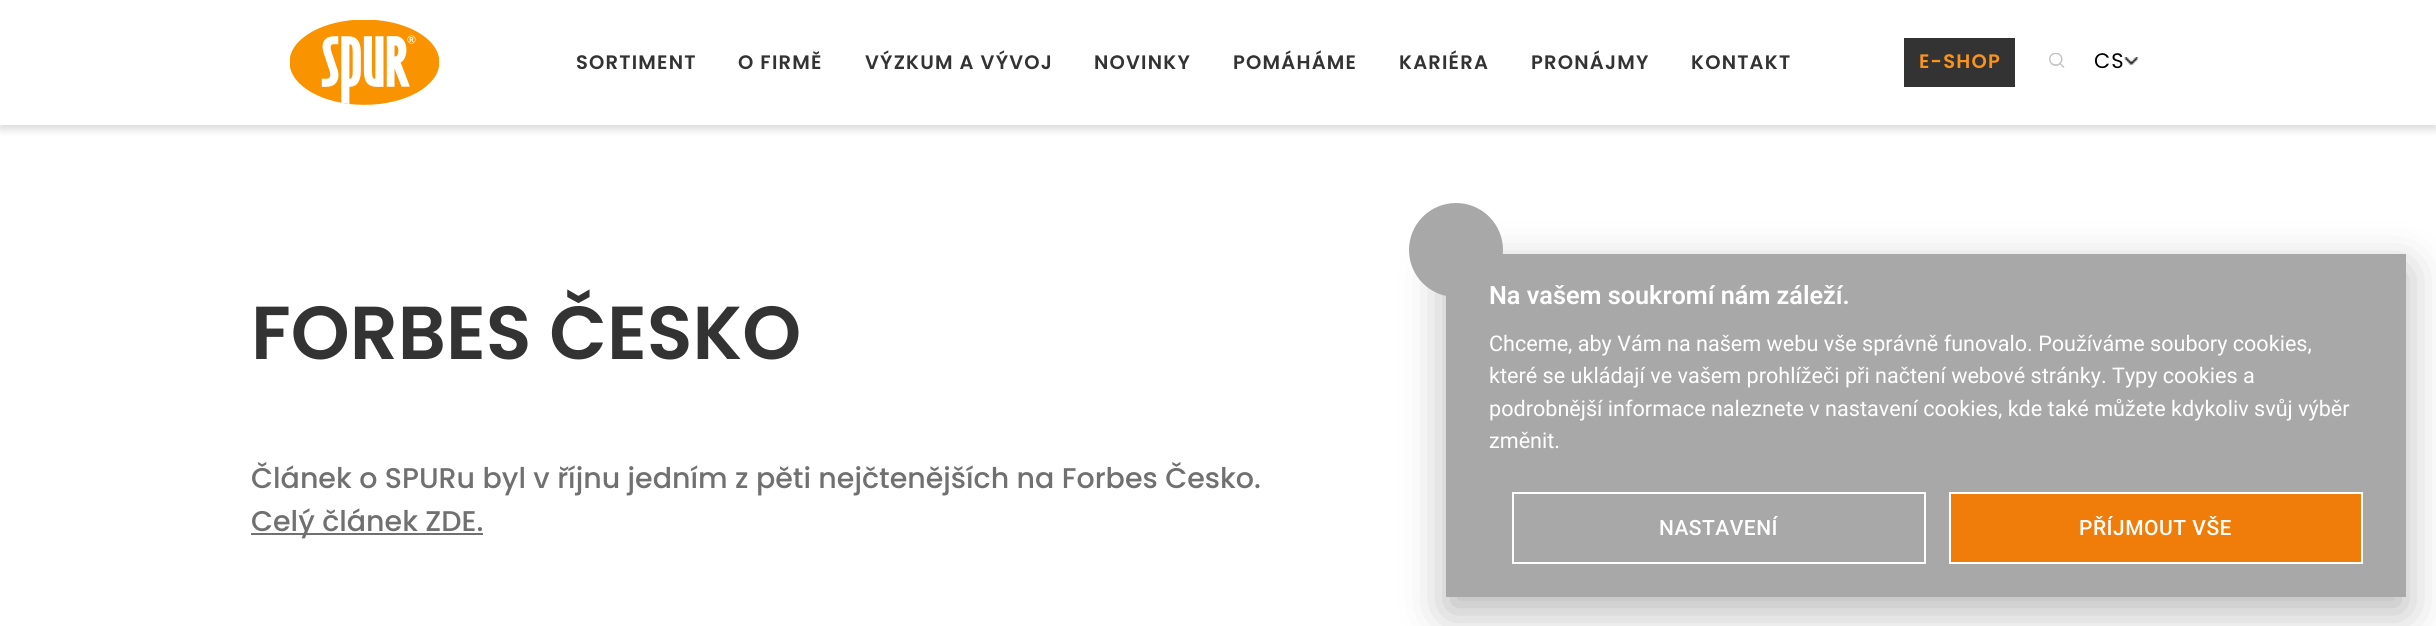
#include <cairo/cairo.h>
#include <math.h>
#include <stddef.h>

typedef struct { double x, y; const char *s; } line_t;
static cairo_t *cr;

static void rgb(unsigned color)
{
	cairo_set_source_rgb(cr, (color >> 16) / 255.0, (color >> 8 & 255) / 255.0, (color & 255) / 255.0);
}

static void tracked(double x, double y, const char *s, double letter, double word)
{
	cairo_move_to(cr, x, y);
	while (*s) {
		char ch[5] = {0};
		int n = 0;
		do ch[n++] = *s++; while ((*s & 0xC0) == 0x80);
		cairo_show_text(cr, ch);
		cairo_rel_move_to(cr, letter + word * (*ch == ' '), 0);
	}
}

static void rrect(double x, double y, double w, double h, double r)
{
	cairo_new_sub_path(cr);
	cairo_arc(cr, x + w - r, y + h - r, r, 0, M_PI / 2);
	cairo_arc(cr, x + r, y + h - r, r, M_PI / 2, M_PI);
	cairo_arc(cr, x + r, y + r, r, M_PI, 1.5 * M_PI);
	cairo_arc(cr, x + w - r, y + r, r, 1.5 * M_PI, 2 * M_PI);
	cairo_close_path(cr);
}

static void soft_shadow(double x, double y, double w, double h, double r, double blur, double alpha)
{
	cairo_push_group_with_content(cr, CAIRO_CONTENT_ALPHA);
	cairo_set_operator(cr, CAIRO_OPERATOR_SOURCE);
	for (int i = 15; i >= -15 && fmin(w, h) + blur * i / 3 > 0; i -= 2) {
		double e = blur * i / 6;
		cairo_set_source_rgba(cr, 0, 0, 0, alpha * erfc((i - 1) / 8.5) / 2);
		rrect(x - e, y - e, w + 2 * e, h + 2 * e, fmax(0, fmin(r + e + blur * .6, fmin(w, h) / 2 + e)));
		cairo_fill(cr);
	}
	cairo_pattern_t *soft = cairo_pop_group(cr);
	cairo_mask(cr, soft);
	cairo_pattern_destroy(soft);
}

static void image(const char *path, double x, double y, double w, double h)
{
	cairo_surface_t *image = cairo_image_surface_create_from_png(path);
	cairo_save(cr);
	cairo_set_source_surface(cr, image, x, y);
	cairo_rectangle(cr, x, y, w, h);
	cairo_fill(cr);
	cairo_restore(cr);
	cairo_surface_destroy(image);
}

int main(void) {
	cairo_surface_t *surface = cairo_image_surface_create(CAIRO_FORMAT_RGB24, 2436, 626);
	cr = cairo_create(surface);
	cairo_font_options_t *options = cairo_font_options_create();
	cairo_font_options_set_hint_metrics(options, CAIRO_HINT_METRICS_OFF);
	cairo_font_options_set_hint_style(options, CAIRO_HINT_STYLE_NONE);
	cairo_set_font_options(cr, options);
	cairo_set_miter_limit(cr, 4);
	rgb(0xffffff);
	cairo_paint(cr);
	rgb(0x000000);
	soft_shadow(0, 5, 2436, 124, 0, 4.5, 0.16);
	rgb(0xffffff);
	cairo_rectangle(cr, 0, 0, 2436, 125);
	cairo_fill(cr);
	image("img/1.png", 290, 20, 149, 85);
	rgb(0x333333);
	cairo_rectangle(cr, 1904, 38, 111, 49);
	cairo_fill(cr);
	cairo_save(cr);
	cairo_rectangle(cr, 2049, 53, 17, 16);
	cairo_clip(cr);
	cairo_new_path(cr);
	cairo_move_to(cr, 2049, 59);
	cairo_curve_to(cr, 2049, 55.5, 2052, 52.5, 2056, 52.5);
	cairo_curve_to(cr, 2059.5, 52.5, 2062.5, 55.5, 2062.5, 59);
	cairo_curve_to(cr, 2062.5, 63, 2059.5, 66, 2056, 66);
	cairo_curve_to(cr, 2052, 66, 2049, 63, 2049, 59);
	cairo_close_path(cr);
	cairo_clip(cr);
	cairo_new_path(cr);
	cairo_move_to(cr, 2049, 59);
	cairo_curve_to(cr, 2049, 50.5, 2062.5, 50.5, 2062.5, 59);
	cairo_curve_to(cr, 2062.5, 68, 2049, 68, 2049, 59);
	cairo_close_path(cr);
	rgb(0xc4c4c4);
	cairo_set_line_width(cr, 3);
	cairo_stroke(cr);
	cairo_restore(cr);
	image("img/2.png", 2124, 57, 15, 9);
	cairo_new_path(cr);
	cairo_move_to(cr, 2060.5, 64);
	cairo_line_to(cr, 2064, 67.5);
	rgb(0xc4c4c4);
	cairo_set_line_width(cr, 1.5);
	cairo_stroke(cr);
	rgb(0x020203);
	soft_shadow(1446, 269, 960, 343, 0, 22.5, 0.28);
	rgb(0xa8a8a8);
	cairo_rectangle(cr, 1446, 254, 960, 343);
	cairo_fill(cr);
	cairo_rectangle(cr, 1513, 493, 412, 70);
	rgb(0xffffff);
	cairo_set_line_width(cr, 2);
	cairo_stroke(cr);
	rgb(0xf07c09);
	cairo_rectangle(cr, 1950, 493, 412, 70);
	cairo_fill_preserve(cr);
	rgb(0xffffff);
	cairo_stroke(cr);
	rgb(0x707070);
	cairo_rectangle(cr, 251, 533, 232, 2);
	cairo_fill(cr);
	cairo_select_font_face(cr, "Poppins SemiBold", CAIRO_FONT_SLANT_NORMAL, CAIRO_FONT_WEIGHT_NORMAL);
	cairo_set_font_size(cr, 19.5);
	rgb(0x333333);
	{
		static const line_t items[] = {
			{576, 69, "SORTIMENT"},
			{738, 69, "O FIRMĚ"},
			{865, 69, "VÝZKUM A VÝVOJ"},
			{1094, 69, "NOVINKY"},
			{1233, 69, "POMÁHÁME"},
			{1399, 69, "KARIÉRA"},
			{1531, 69, "PRONÁJMY"},
			{1691, 69, "KONTAKT"},
		};
		for (size_t i = 0; i < sizeof items / sizeof *items; i++) {
			tracked(items[i].x, items[i].y, items[i].s, 1.2, 0);
		}
	}
	rgb(0xf9931b);
	tracked(1919, 68, "E-SHOP", 1.2, 0);
	cairo_select_font_face(cr, "Poppins", CAIRO_FONT_SLANT_NORMAL, CAIRO_FONT_WEIGHT_NORMAL);
	cairo_set_font_size(cr, 21);
	rgb(0x000000);
	tracked(2094, 68, "CS", 1, 0);
	cairo_select_font_face(cr, "Poppins SemiBold", CAIRO_FONT_SLANT_NORMAL, CAIRO_FONT_WEIGHT_NORMAL);
	cairo_set_font_size(cr, 75);
	rgb(0x333333);
	cairo_move_to(cr, 251, 359);
	cairo_show_text(cr, "FORBES ČESKO");
	cairo_select_font_face(cr, "Roboto SemiBold", CAIRO_FONT_SLANT_NORMAL, CAIRO_FONT_WEIGHT_NORMAL);
	cairo_set_font_size(cr, 25.25);
	rgb(0xffffff);
	cairo_move_to(cr, 1489, 304);
	cairo_show_text(cr, "Na vašem soukromí nám záleží.");
	rgb(0xa8a8a8);
	cairo_new_path(cr);
	cairo_arc(cr, 1456, 250, 47, 0, 2 * M_PI);
	cairo_fill(cr);
	cairo_select_font_face(cr, "Roboto", CAIRO_FONT_SLANT_NORMAL, CAIRO_FONT_WEIGHT_NORMAL);
	cairo_set_font_size(cr, 21.6);
	rgb(0xffffff);
	{
		static const line_t items[] = {
			{1489, 351, "Chceme, aby Vám na našem webu vše správně funovalo. Používáme soubory cookies,"},
			{1489, 383, "které se ukládají ve vašem prohlížeči při načtení webové stránky. Typy cookies a"},
			{1489, 416, "podrobnější informace naleznete v nastavení cookies, kde také můžete kdykoliv svůj výběr"},
			{1489, 448, "změnit."},
		};
		for (size_t i = 0; i < sizeof items / sizeof *items; i++) {
			cairo_move_to(cr, items[i].x, items[i].y);
			cairo_show_text(cr, items[i].s);
		}
	}
	cairo_select_font_face(cr, "Roboto Medium", CAIRO_FONT_SLANT_NORMAL, CAIRO_FONT_WEIGHT_NORMAL);
	cairo_set_font_size(cr, 21);
	tracked(1659, 535, "NASTAVENÍ", 0.5, 0);
	tracked(2079, 535, "PŘÍJMOUT VŠE", 0.5, 0);
	cairo_select_font_face(cr, "Poppins Medium", CAIRO_FONT_SLANT_NORMAL, CAIRO_FONT_WEIGHT_NORMAL);
	cairo_set_font_size(cr, 28.5);
	rgb(0x707070);
	cairo_move_to(cr, 251, 488);
	cairo_show_text(cr, "Článek o SPURu byl v říjnu jedním z pěti nejčtenějších na Forbes Česko.");
	cairo_move_to(cr, 251, 531);
	cairo_show_text(cr, "Celý článek ZDE.");
	cairo_surface_write_to_png(surface, "page.png");
	cairo_font_options_destroy(options);
	cairo_destroy(cr);
	cairo_surface_destroy(surface);
	return 0;
}
